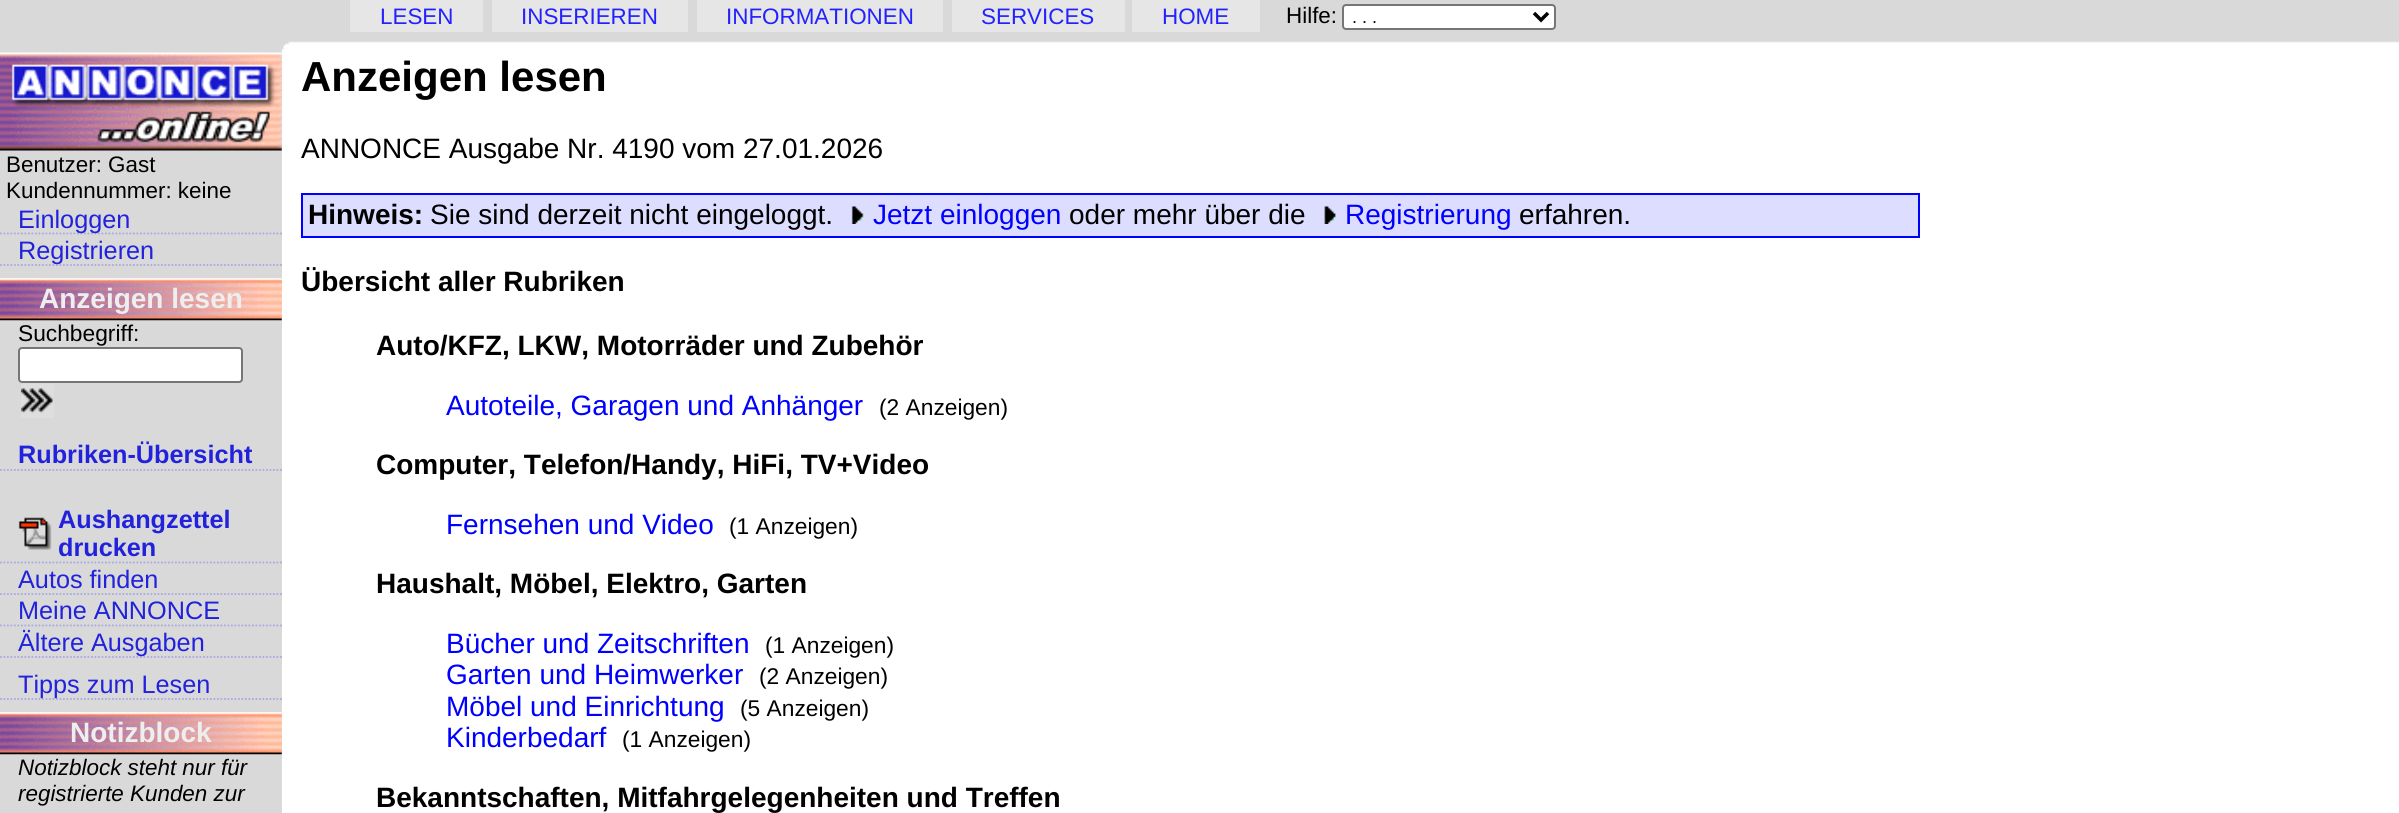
#include <cairo/cairo.h>
#include <math.h>
#include <stddef.h>

typedef struct { double x, y; const char *s; } line_t;
typedef struct { double x, y, w, h; unsigned color; } box_t;
static cairo_t *cr;

static void rgb(unsigned color)
{
	cairo_set_source_rgb(cr, (color >> 16) / 255.0, (color >> 8 & 255) / 255.0, (color & 255) / 255.0);
}

static void rrect(double x, double y, double w, double h, double r)
{
	cairo_new_sub_path(cr);
	cairo_arc(cr, x + w - r, y + h - r, r, 0, M_PI / 2);
	cairo_arc(cr, x + r, y + h - r, r, M_PI / 2, M_PI);
	cairo_arc(cr, x + r, y + r, r, M_PI, 1.5 * M_PI);
	cairo_arc(cr, x + w - r, y + r, r, 1.5 * M_PI, 2 * M_PI);
	cairo_close_path(cr);
}

static void image(const char *path, double x, double y, double w, double h)
{
	cairo_surface_t *image = cairo_image_surface_create_from_png(path);
	cairo_save(cr);
	cairo_set_source_surface(cr, image, x, y);
	cairo_rectangle(cr, x, y, w, h);
	cairo_fill(cr);
	cairo_restore(cr);
	cairo_surface_destroy(image);
}

int main(void) {
	cairo_surface_t *surface = cairo_image_surface_create(CAIRO_FORMAT_RGB24, 2399, 813);
	cr = cairo_create(surface);
	cairo_font_options_t *options = cairo_font_options_create();
	cairo_font_options_set_hint_metrics(options, CAIRO_HINT_METRICS_OFF);
	cairo_font_options_set_hint_style(options, CAIRO_HINT_STYLE_NONE);
	cairo_set_font_options(cr, options);
	cairo_set_miter_limit(cr, 4);
	rgb(0xffffff);
	cairo_paint(cr);
	rgb(0xd9d9d9);
	cairo_rectangle(cr, 0, 0, 282, 813);
	cairo_fill(cr);
	image("img/1.png", 281, 0, 2118, 53);
	{
		static const box_t items[] = {
			{350, 0, 133, 32, 0xe6e6e6},
			{492, 0, 196, 32, 0xe6e6e6},
			{697, 0, 246, 32, 0xe6e6e6},
			{952, 0, 173, 32, 0xe6e6e6},
			{1132, 0, 128, 32, 0xe6e6e6},
		};
		for (size_t i = 0; i < sizeof items / sizeof *items; i++) {
			rgb(items[i].color);
			cairo_rectangle(cr, items[i].x, items[i].y, items[i].w, items[i].h);
			cairo_fill(cr);
		}
	}
	rgb(0xffffff);
	rrect(1343, 5, 212, 24, 3);
	cairo_fill_preserve(cr);
	rgb(0x767676);
	cairo_stroke(cr);
	cairo_new_path(cr);
	cairo_move_to(cr, 1534, 13);
	cairo_line_to(cr, 1541, 20);
	cairo_line_to(cr, 1548, 13);
	rgb(0x000000);
	cairo_set_line_width(cr, 3.5);
	cairo_stroke(cr);
	image("img/2.png", 0, 52, 282, 99);
	cairo_new_path(cr);
	cairo_move_to(cr, 0, 233.5);
	cairo_line_to(cr, 282, 233.5);
	rgb(0xa8a8e2);
	cairo_set_line_width(cr, 1.8);
	cairo_set_dash(cr, (double[]){1.75, 1.75}, 2, 0);
	cairo_stroke(cr);
	cairo_new_path(cr);
	cairo_move_to(cr, 0, 265);
	cairo_line_to(cr, 282, 265);
	cairo_stroke(cr);
	image("img/3.png", 0, 278, 282, 43);
	rgb(0xffffff);
	rrect(19, 348, 223, 34, 3);
	cairo_fill_preserve(cr);
	rgb(0x767676);
	cairo_set_line_width(cr, 2);
	cairo_set_dash(cr, NULL, 0, 0);
	cairo_stroke(cr);
	image("img/4.png", 21, 384, 33, 34);
	cairo_new_path(cr);
	cairo_move_to(cr, 0, 470);
	cairo_line_to(cr, 282, 470);
	rgb(0xa8a8e2);
	cairo_set_line_width(cr, 1.8);
	cairo_set_dash(cr, (double[]){1.75, 1.75}, 2, 0);
	cairo_stroke(cr);
	cairo_new_path(cr);
	cairo_move_to(cr, 0, 562.5);
	cairo_line_to(cr, 282, 562.5);
	cairo_stroke(cr);
	image("img/5.png", 18, 517, 34, 33);
	cairo_new_path(cr);
	cairo_move_to(cr, 0, 594);
	cairo_line_to(cr, 282, 594);
	cairo_stroke(cr);
	cairo_new_path(cr);
	cairo_move_to(cr, 0, 625.5);
	cairo_line_to(cr, 282, 625.5);
	cairo_stroke(cr);
	cairo_new_path(cr);
	cairo_move_to(cr, 0, 657);
	cairo_line_to(cr, 282, 657);
	cairo_stroke(cr);
	cairo_new_path(cr);
	cairo_move_to(cr, 0, 699);
	cairo_line_to(cr, 282, 699);
	cairo_stroke(cr);
	image("img/3.png", 0, 712, 282, 43);
	rgb(0xddddff);
	cairo_rectangle(cr, 302, 194, 1617, 43);
	cairo_fill_preserve(cr);
	rgb(0x0000ff);
	cairo_set_line_width(cr, 2);
	cairo_set_dash(cr, NULL, 0, 0);
	cairo_stroke(cr);
	image("img/6.png", 851, 206, 13, 18);
	image("img/7.png", 1324, 206, 12, 18);
	cairo_select_font_face(cr, "Liberation Sans", CAIRO_FONT_SLANT_NORMAL, CAIRO_FONT_WEIGHT_NORMAL);
	cairo_set_font_size(cr, 22.4);
	rgb(0x2222ff);
	{
		static const line_t items[] = {
			{380, 24, "LESEN"},
			{521, 24, "INSERIEREN"},
			{726, 24, "INFORMATIONEN"},
			{981, 24, "SERVICES"},
			{1162, 24, "HOME"},
		};
		for (size_t i = 0; i < sizeof items / sizeof *items; i++) {
			cairo_move_to(cr, items[i].x, items[i].y);
			cairo_show_text(cr, items[i].s);
		}
	}
	rgb(0x000000);
	cairo_move_to(cr, 1286, 23);
	cairo_show_text(cr, "Hilfe:");
	cairo_set_font_size(cr, 18);
	cairo_move_to(cr, 1352, 23);
	cairo_show_text(cr, ". . .");
	cairo_set_font_size(cr, 22.4);
	cairo_move_to(cr, 6, 172);
	cairo_show_text(cr, "Benutzer: Gast");
	cairo_move_to(cr, 6, 198);
	cairo_show_text(cr, "Kundennummer: keine");
	cairo_set_font_size(cr, 25.25);
	rgb(0x2222dd);
	cairo_move_to(cr, 18, 228);
	cairo_show_text(cr, "Einloggen");
	cairo_move_to(cr, 18, 259);
	cairo_show_text(cr, "Registrieren");
	cairo_select_font_face(cr, "Liberation Sans", CAIRO_FONT_SLANT_NORMAL, CAIRO_FONT_WEIGHT_BOLD);
	cairo_set_font_size(cr, 28);
	rgb(0xeeeeee);
	cairo_move_to(cr, 39, 308);
	cairo_show_text(cr, "Anzeigen lesen");
	cairo_select_font_face(cr, "Liberation Sans", CAIRO_FONT_SLANT_NORMAL, CAIRO_FONT_WEIGHT_NORMAL);
	cairo_set_font_size(cr, 22.75);
	rgb(0x000000);
	cairo_move_to(cr, 18, 341);
	cairo_show_text(cr, "Suchbegriff:");
	cairo_select_font_face(cr, "Liberation Sans", CAIRO_FONT_SLANT_NORMAL, CAIRO_FONT_WEIGHT_BOLD);
	cairo_set_font_size(cr, 25.25);
	rgb(0x2222dd);
	{
		static const line_t items[] = {
			{18, 463, "Rubriken-Übersicht"},
			{58, 528, "Aushangzettel"},
			{58, 556, "drucken"},
		};
		for (size_t i = 0; i < sizeof items / sizeof *items; i++) {
			cairo_move_to(cr, items[i].x, items[i].y);
			cairo_show_text(cr, items[i].s);
		}
	}
	cairo_select_font_face(cr, "Liberation Sans", CAIRO_FONT_SLANT_NORMAL, CAIRO_FONT_WEIGHT_NORMAL);
	{
		static const line_t items[] = {
			{18, 588, "Autos finden"},
			{18, 619, "Meine ANNONCE"},
			{18, 651, "Ältere Ausgaben"},
			{18, 693, "Tipps zum Lesen"},
		};
		for (size_t i = 0; i < sizeof items / sizeof *items; i++) {
			cairo_move_to(cr, items[i].x, items[i].y);
			cairo_show_text(cr, items[i].s);
		}
	}
	cairo_select_font_face(cr, "Liberation Sans", CAIRO_FONT_SLANT_NORMAL, CAIRO_FONT_WEIGHT_BOLD);
	cairo_set_font_size(cr, 28);
	rgb(0xeeeeee);
	cairo_move_to(cr, 70, 742);
	cairo_show_text(cr, "Notizblock");
	cairo_select_font_face(cr, "Liberation Sans", CAIRO_FONT_SLANT_ITALIC, CAIRO_FONT_WEIGHT_NORMAL);
	cairo_set_font_size(cr, 22.4);
	rgb(0x000000);
	cairo_move_to(cr, 18, 775);
	cairo_show_text(cr, "Notizblock steht nur für");
	cairo_move_to(cr, 18, 801);
	cairo_show_text(cr, "registrierte Kunden zur");
	cairo_select_font_face(cr, "Liberation Sans", CAIRO_FONT_SLANT_NORMAL, CAIRO_FONT_WEIGHT_BOLD);
	cairo_set_font_size(cr, 42);
	cairo_move_to(cr, 301, 91);
	cairo_show_text(cr, "Anzeigen lesen");
	cairo_select_font_face(cr, "Liberation Sans", CAIRO_FONT_SLANT_NORMAL, CAIRO_FONT_WEIGHT_NORMAL);
	cairo_set_font_size(cr, 28);
	cairo_move_to(cr, 301, 158);
	cairo_show_text(cr, "ANNONCE Ausgabe Nr. 4190 vom 27.01.2026");
	cairo_select_font_face(cr, "Liberation Sans", CAIRO_FONT_SLANT_NORMAL, CAIRO_FONT_WEIGHT_BOLD);
	cairo_move_to(cr, 308, 224);
	cairo_show_text(cr, "Hinweis:");
	cairo_select_font_face(cr, "Liberation Sans", CAIRO_FONT_SLANT_NORMAL, CAIRO_FONT_WEIGHT_NORMAL);
	cairo_move_to(cr, 430, 224);
	cairo_show_text(cr, "Sie sind derzeit nicht eingeloggt.");
	rgb(0x0000ff);
	cairo_move_to(cr, 873, 224);
	cairo_show_text(cr, "Jetzt einloggen");
	rgb(0x000000);
	cairo_move_to(cr, 1069, 224);
	cairo_show_text(cr, "oder mehr über die");
	rgb(0x0000ff);
	cairo_move_to(cr, 1345, 224);
	cairo_show_text(cr, "Registrierung");
	rgb(0x000000);
	cairo_move_to(cr, 1519, 224);
	cairo_show_text(cr, "erfahren.");
	cairo_select_font_face(cr, "Liberation Sans", CAIRO_FONT_SLANT_NORMAL, CAIRO_FONT_WEIGHT_BOLD);
	cairo_move_to(cr, 301, 291);
	cairo_show_text(cr, "Übersicht aller Rubriken");
	cairo_move_to(cr, 376, 355);
	cairo_show_text(cr, "Auto/KFZ, LKW, Motorräder und Zubehör");
	cairo_select_font_face(cr, "Liberation Sans", CAIRO_FONT_SLANT_NORMAL, CAIRO_FONT_WEIGHT_NORMAL);
	rgb(0x0000ff);
	cairo_move_to(cr, 446, 415);
	cairo_show_text(cr, "Autoteile, Garagen und Anhänger");
	cairo_set_font_size(cr, 22.75);
	rgb(0x000000);
	cairo_move_to(cr, 879, 415);
	cairo_show_text(cr, "(2 Anzeigen)");
	cairo_select_font_face(cr, "Liberation Sans", CAIRO_FONT_SLANT_NORMAL, CAIRO_FONT_WEIGHT_BOLD);
	cairo_set_font_size(cr, 28);
	cairo_move_to(cr, 376, 474);
	cairo_show_text(cr, "Computer, Telefon/Handy, HiFi, TV+Video");
	cairo_select_font_face(cr, "Liberation Sans", CAIRO_FONT_SLANT_NORMAL, CAIRO_FONT_WEIGHT_NORMAL);
	rgb(0x0000ff);
	cairo_move_to(cr, 446, 534);
	cairo_show_text(cr, "Fernsehen und Video");
	cairo_set_font_size(cr, 22.75);
	rgb(0x000000);
	cairo_move_to(cr, 729, 534);
	cairo_show_text(cr, "(1 Anzeigen)");
	cairo_select_font_face(cr, "Liberation Sans", CAIRO_FONT_SLANT_NORMAL, CAIRO_FONT_WEIGHT_BOLD);
	cairo_set_font_size(cr, 28);
	cairo_move_to(cr, 376, 593);
	cairo_show_text(cr, "Haushalt, Möbel, Elektro, Garten");
	cairo_select_font_face(cr, "Liberation Sans", CAIRO_FONT_SLANT_NORMAL, CAIRO_FONT_WEIGHT_NORMAL);
	rgb(0x0000ff);
	cairo_move_to(cr, 446, 653);
	cairo_show_text(cr, "Bücher und Zeitschriften");
	cairo_set_font_size(cr, 22.75);
	rgb(0x000000);
	cairo_move_to(cr, 765, 653);
	cairo_show_text(cr, "(1 Anzeigen)");
	cairo_set_font_size(cr, 28);
	rgb(0x0000ff);
	cairo_move_to(cr, 446, 684);
	cairo_show_text(cr, "Garten und Heimwerker");
	cairo_set_font_size(cr, 22.75);
	rgb(0x000000);
	cairo_move_to(cr, 759, 684);
	cairo_show_text(cr, "(2 Anzeigen)");
	cairo_set_font_size(cr, 28);
	rgb(0x0000ff);
	cairo_move_to(cr, 446, 716);
	cairo_show_text(cr, "Möbel und Einrichtung");
	cairo_set_font_size(cr, 22.75);
	rgb(0x000000);
	cairo_move_to(cr, 740, 716);
	cairo_show_text(cr, "(5 Anzeigen)");
	cairo_set_font_size(cr, 28);
	rgb(0x0000ff);
	cairo_move_to(cr, 446, 747);
	cairo_show_text(cr, "Kinderbedarf");
	cairo_set_font_size(cr, 22.75);
	rgb(0x000000);
	cairo_move_to(cr, 622, 747);
	cairo_show_text(cr, "(1 Anzeigen)");
	cairo_select_font_face(cr, "Liberation Sans", CAIRO_FONT_SLANT_NORMAL, CAIRO_FONT_WEIGHT_BOLD);
	cairo_set_font_size(cr, 28);
	cairo_move_to(cr, 376, 807);
	cairo_show_text(cr, "Bekanntschaften, Mitfahrgelegenheiten und Treffen");
	cairo_surface_write_to_png(surface, "page.png");
	cairo_font_options_destroy(options);
	cairo_destroy(cr);
	cairo_surface_destroy(surface);
	return 0;
}
